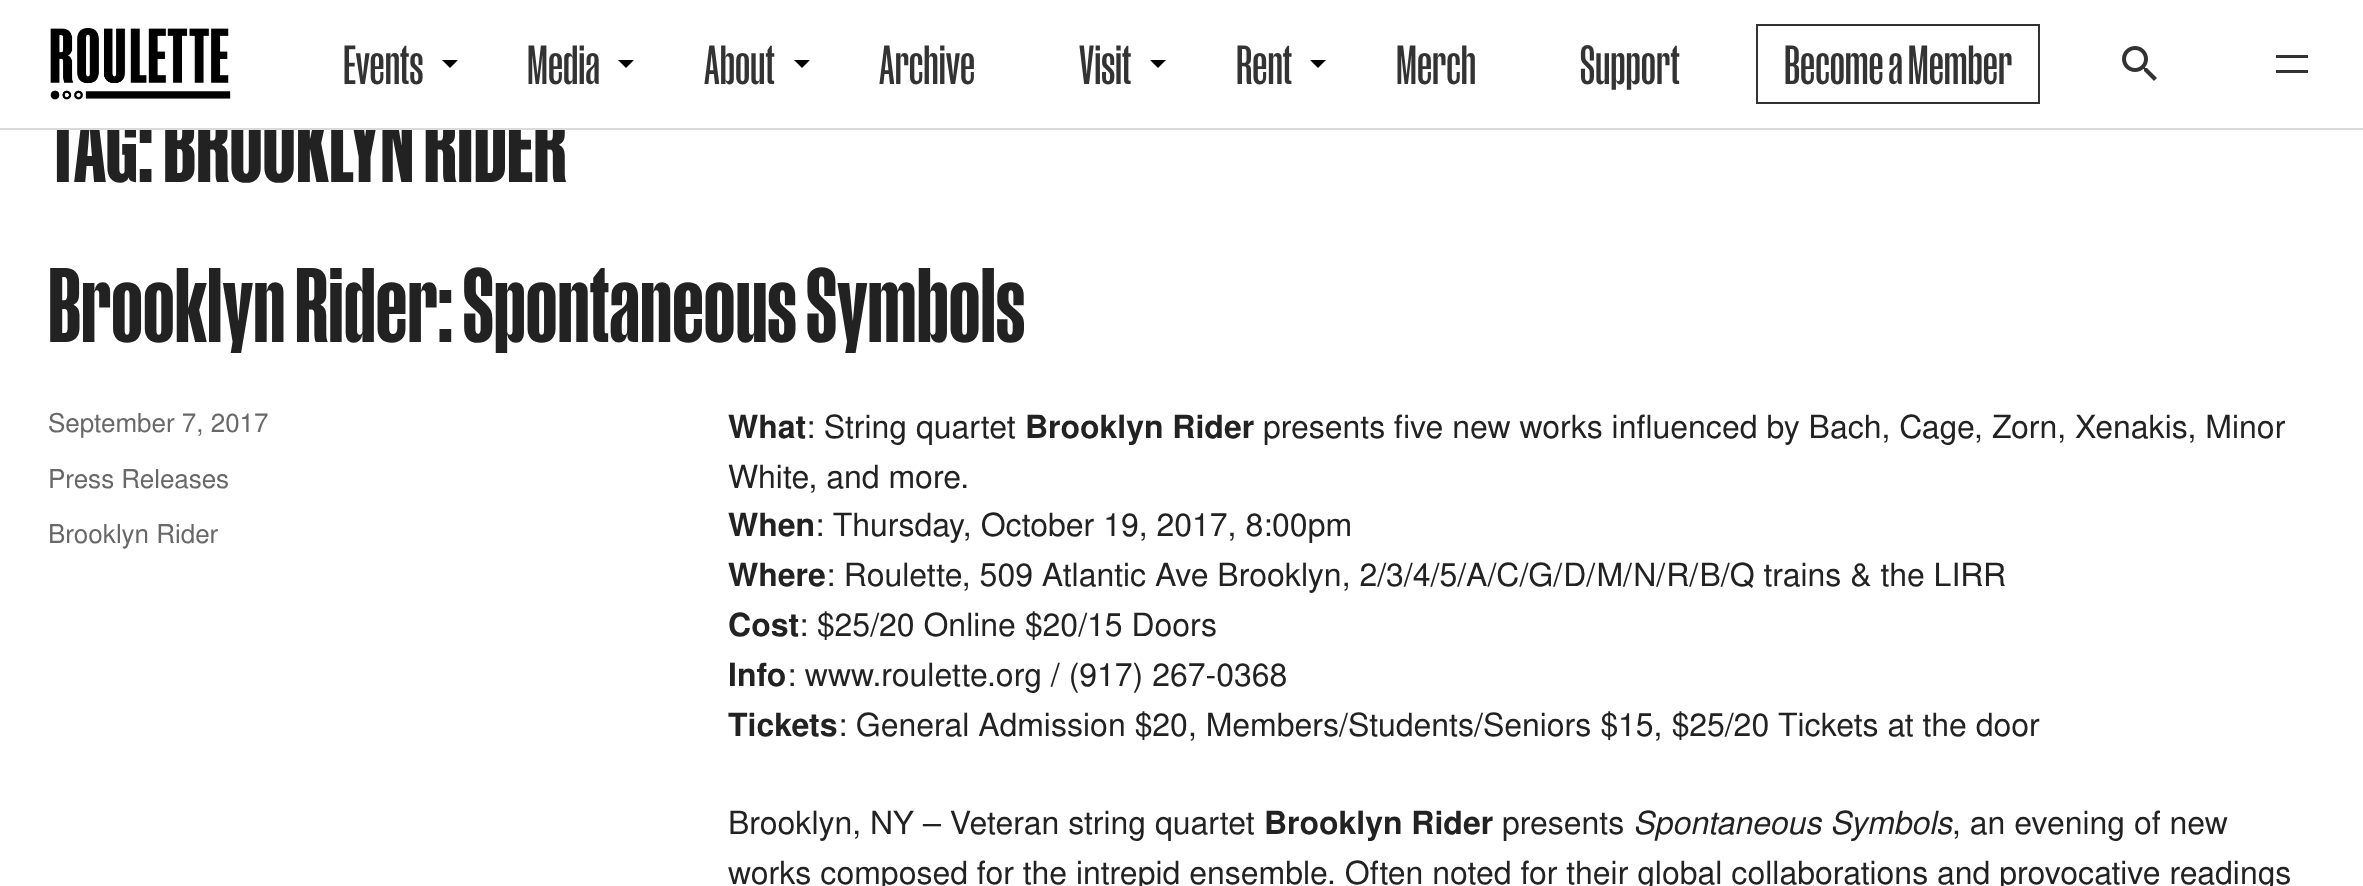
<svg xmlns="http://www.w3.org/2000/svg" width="2363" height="886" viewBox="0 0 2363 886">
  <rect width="100%" height="100%" fill="#ffffff"/>
  <text x="48" y="182" font-family="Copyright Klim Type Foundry" font-size="100" font-weight="bold" fill="#222222">TAG: BROOKLYN RIDER</text>
  <rect x="49" y="107" width="516" height="21" fill="#ffffff"/>
  <rect x="0" y="128" width="2363" height="2" fill="#dadada"/>
  <image x="50" y="28" width="181" height="72" href="img1.png"/>
  <text x="343" y="84" font-family="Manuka" font-size="52" font-weight="500" fill="#333333">Events</text>
  <path d="M442 60H458L450 68Z" fill="#000000"/>
  <text x="527" y="84" font-family="Manuka" font-size="52" font-weight="500" fill="#333333">Media</text>
  <path d="M618 60H634L626 68Z" fill="#000000"/>
  <text x="704" y="84" font-family="Manuka" font-size="52" font-weight="500" fill="#333333">About</text>
  <path d="M794 60H810L802 68Z" fill="#000000"/>
  <text x="879" y="84" font-family="Manuka" font-size="52" font-weight="500" fill="#333333">Archive</text>
  <text x="1079" y="84" font-family="Manuka" font-size="52" font-weight="500" fill="#333333">Visit</text>
  <path d="M1150 60H1166L1158 68Z" fill="#000000"/>
  <text x="1236" y="84" font-family="Manuka" font-size="52" font-weight="500" fill="#333333">Rent</text>
  <path d="M1310 60H1326L1318 68Z" fill="#000000"/>
  <text x="1396" y="84" font-family="Manuka" font-size="52" font-weight="500" fill="#333333">Merch</text>
  <text x="1580" y="84" font-family="Manuka" font-size="52" font-weight="500" fill="#333333">Support</text>
  <rect x="1757" y="25" width="282" height="78" fill="none" stroke="#333333" stroke-width="2"/>
  <text x="1784" y="84" font-family="Manuka" font-size="52" font-weight="500" fill="#333333">Become a Member</text>
  <image x="2122" y="46" width="35" height="35" href="img2.png"/>
  <rect x="2276" y="55" width="32" height="3" fill="#333333"/>
  <rect x="2276" y="70" width="32" height="3" fill="#333333"/>
  <text x="48" y="342" font-family="Copyright Klim Type Foundry" font-size="100" font-weight="bold" fill="#222222">Brooklyn Rider: Spontaneous Symbols</text>
  <text x="48" y="432" font-family="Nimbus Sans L" font-size="26" fill="#686868">September 7, 2017</text>
  <text x="48" y="488" font-family="Nimbus Sans L" font-size="26" fill="#686868">Press Releases</text>
  <text x="48" y="543" font-family="Nimbus Sans L" font-size="26" fill="#686868">Brooklyn Rider</text>
  <text x="728" y="438" font-family="Nimbus Sans L" font-size="32" font-weight="bold" fill="#222222">What</text>
  <text x="806" y="438" font-family="Nimbus Sans L" font-size="32" fill="#222222">: String quartet</text>
  <text x="1025" y="438" font-family="Nimbus Sans L" font-size="32" font-weight="bold" fill="#222222">Brooklyn Rider</text>
  <text x="1263" y="438" font-family="Nimbus Sans L" font-size="32" fill="#222222">presents five new works influenced by Bach, Cage, Zorn, Xenakis, Minor</text>
  <text x="728" y="488" font-family="Nimbus Sans L" font-size="32" fill="#222222">White, and more.</text>
  <text x="728" y="536" font-family="Nimbus Sans L" font-size="32" font-weight="bold" fill="#222222">When</text>
  <text x="815" y="536" font-family="Nimbus Sans L" font-size="32" fill="#222222">: Thursday, October 19, 2017, 8:00pm</text>
  <text x="728" y="586" font-family="Nimbus Sans L" font-size="32" font-weight="bold" fill="#222222">Where</text>
  <text x="826" y="586" font-family="Nimbus Sans L" font-size="32" fill="#222222">: Roulette, 509 Atlantic Ave Brooklyn, 2/3/4/5/A/C/G/D/M/N/R/B/Q trains &amp; the LIRR</text>
  <text x="728" y="636" font-family="Nimbus Sans L" font-size="32" font-weight="bold" fill="#222222">Cost</text>
  <text x="799" y="636" font-family="Nimbus Sans L" font-size="32" fill="#222222">: $25/20 Online $20/15 Doors</text>
  <text x="728" y="686" font-family="Nimbus Sans L" font-size="32" font-weight="bold" fill="#222222">Info</text>
  <text x="787" y="686" font-family="Nimbus Sans L" font-size="32" fill="#222222">: www.roulette.org / (917) 267-0368</text>
  <text x="728" y="736" font-family="Nimbus Sans L" font-size="32" font-weight="bold" fill="#222222">Tickets</text>
  <text x="838" y="736" font-family="Nimbus Sans L" font-size="32" fill="#222222">: General Admission $20, Members/Students/Seniors $15, $25/20 Tickets at the door</text>
  <text x="728" y="834" font-family="Nimbus Sans L" font-size="32" fill="#222222">Brooklyn, NY – Veteran string quartet</text>
  <text x="1264" y="834" font-family="Nimbus Sans L" font-size="32" font-weight="bold" fill="#222222">Brooklyn Rider</text>
  <text x="1502" y="834" font-family="Nimbus Sans L" font-size="32" fill="#222222">presents</text>
  <text x="1633" y="834" font-family="Nimbus Sans L" font-size="32" font-style="italic" fill="#222222">Spontaneous Symbols</text>
  <text x="1952" y="834" font-family="Nimbus Sans L" font-size="32" fill="#222222">, an evening of new</text>
  <text x="728" y="884" font-family="Nimbus Sans L" font-size="32" fill="#222222">works composed for the intrepid ensemble. Often noted for their global collaborations and provocative readings</text>
</svg>
